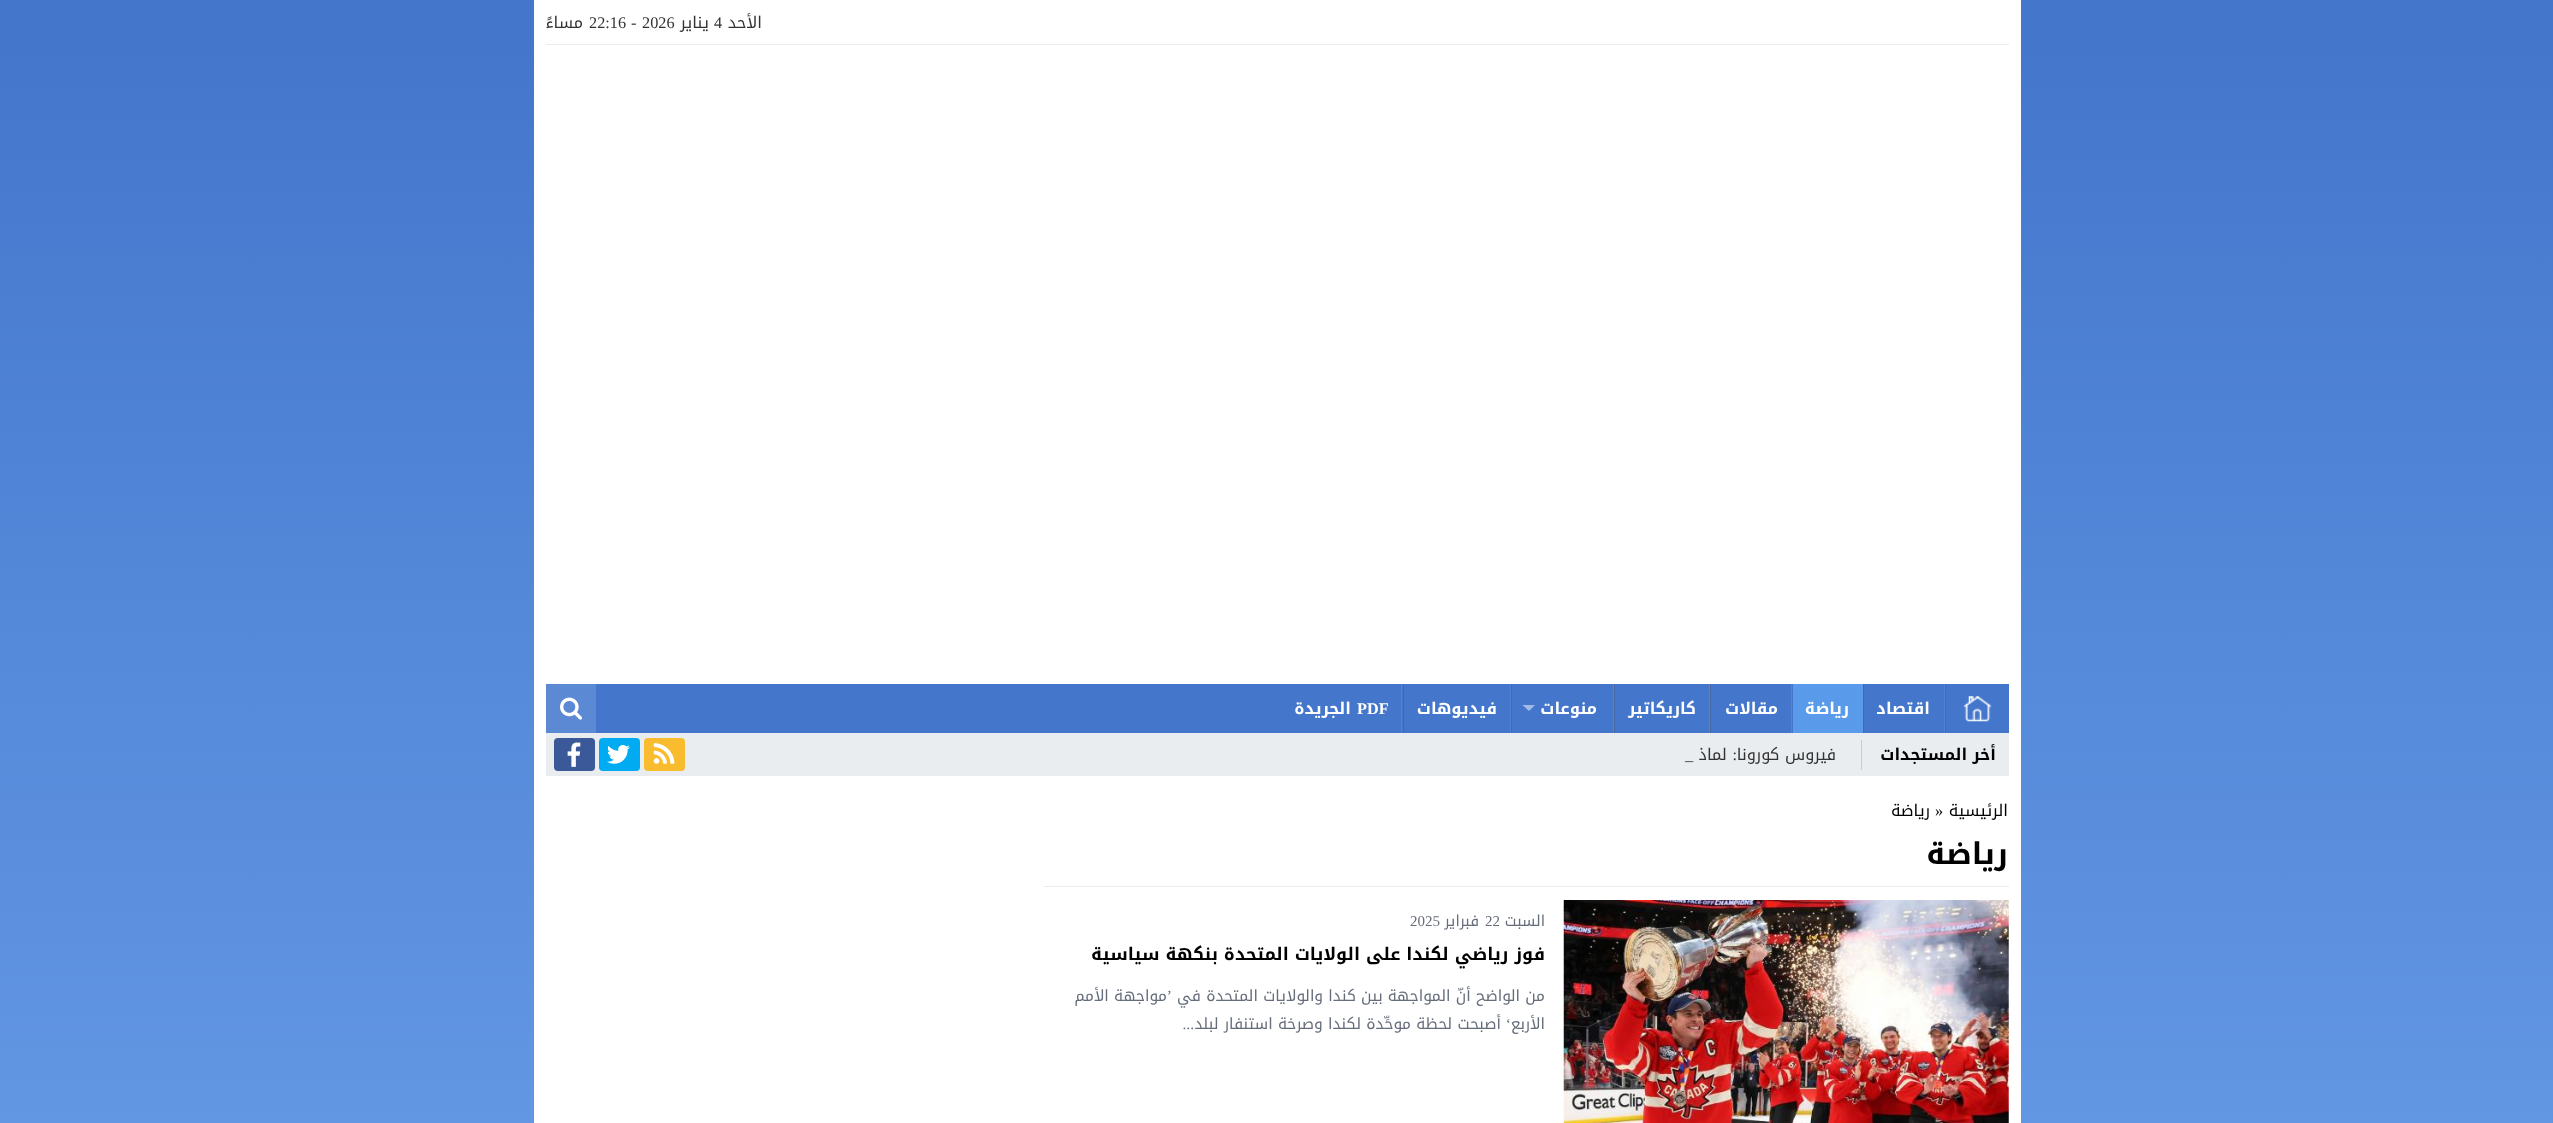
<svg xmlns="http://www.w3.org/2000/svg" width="2553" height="1123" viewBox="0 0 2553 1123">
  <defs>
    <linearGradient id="g1" gradientUnits="userSpaceOnUse" x1="1277" y1="0" x2="1277" y2="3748"><stop offset="0.01" stop-color="#4477cc"/><stop offset="0.54" stop-color="#7bb1f7"/><stop offset="1" stop-color="#4477cc"/></linearGradient>
  </defs>
  <rect width="100%" height="100%" fill="#ffffff"/>
  <rect x="0" y="0" width="2553" height="1123" fill="url(#g1)"/>
  <rect x="534" y="0" width="1487" height="1123" fill="#ffffff"/>
  <rect x="546" y="44" width="1463" height="1" fill="#e9edf0"/>
  <text x="762" y="28" font-family="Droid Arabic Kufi" font-size="16.25" direction="rtl" fill="#333333">الأحد</text>
  <text x="714" y="28" font-family="Liberation Serif" font-size="16.25" fill="#333333">4</text>
  <text x="709" y="28" font-family="Droid Arabic Kufi" font-size="16.25" direction="rtl" fill="#333333">يناير</text>
  <text x="642" y="28" font-family="Liberation Serif" font-size="16.25" fill="#333333">2026</text>
  <text x="631" y="28" font-family="Liberation Serif" font-size="16.25" fill="#333333">-</text>
  <text x="589" y="28" font-family="Liberation Serif" font-size="16.25" fill="#333333">22:16</text>
  <text x="583" y="28" font-family="Droid Arabic Kufi" font-size="16.25" direction="rtl" fill="#333333">مساءً</text>
  <rect x="596" y="684" width="1413" height="49" fill="#4477cc"/>
  <rect x="1945" y="684" width="1" height="49" fill="#4868a0"/>
  <image x="1963" y="696" width="29" height="26" href="img1.png"/>
  <rect x="1944" y="684" width="1" height="49" fill="#5283d9"/>
  <rect x="1863" y="684" width="1" height="49" fill="#4868a0"/>
  <text x="1930" y="714" font-family="Droid Arabic Kufi" font-size="16.25" font-weight="bold" direction="rtl" fill="#ffffff">اقتصاد</text>
  <rect x="1793" y="684" width="70" height="49" fill="#599aea"/>
  <text x="1849" y="714" font-family="Droid Arabic Kufi" font-size="16.25" font-weight="bold" direction="rtl" fill="#ffffff">رياضة</text>
  <rect x="1791" y="684" width="1" height="49" fill="#5283d9"/>
  <rect x="1710" y="684" width="1" height="49" fill="#4868a0"/>
  <text x="1778" y="714" font-family="Droid Arabic Kufi" font-size="16.25" font-weight="bold" direction="rtl" fill="#ffffff">مقالات</text>
  <rect x="1709" y="684" width="1" height="49" fill="#5283d9"/>
  <rect x="1614" y="684" width="1" height="49" fill="#4868a0"/>
  <text x="1696" y="714" font-family="Droid Arabic Kufi" font-size="16.25" font-weight="bold" direction="rtl" fill="#ffffff">كاريكاتير</text>
  <rect x="1613" y="684" width="1" height="49" fill="#5283d9"/>
  <rect x="1511" y="684" width="1" height="49" fill="#4868a0"/>
  <text x="1597" y="714" font-family="Droid Arabic Kufi" font-size="16.25" font-weight="bold" direction="rtl" fill="#ffffff">منوعات</text>
  <path d="M1522.5 705H1535L1529 711Z" fill="#a2bbe6"/>
  <rect x="1510" y="684" width="1" height="49" fill="#5283d9"/>
  <rect x="1403" y="684" width="1" height="49" fill="#4868a0"/>
  <text x="1497" y="714" font-family="Droid Arabic Kufi" font-size="16.25" font-weight="bold" direction="rtl" fill="#ffffff">فيديوهات</text>
  <rect x="1401" y="684" width="1" height="49" fill="#5283d9"/>
  <text x="1357" y="714" font-family="Liberation Serif" font-size="16.25" font-weight="bold" fill="#ffffff">PDF</text>
  <text x="1351" y="714" font-family="Droid Arabic Kufi" font-size="16.25" font-weight="bold" direction="rtl" fill="#ffffff">الجريدة</text>
  <rect x="546" y="684" width="50" height="49" fill="#5c89d3"/>
  <image x="560" y="697" width="22" height="23" href="img2.png"/>
  <rect x="546" y="733" width="1463" height="43" fill="#e9edf0"/>
  <text x="1996" y="760" font-family="Droid Arabic Kufi" font-size="16.25" font-weight="bold" direction="rtl" fill="#000000">أخر المستجدات</text>
  <rect x="1861" y="740" width="1" height="30" fill="#cccccc"/>
  <text x="1836" y="760" font-family="Droid Arabic Kufi" font-size="16.25" direction="rtl" fill="#333333">فيروس كورونا</text>
  <text x="1737" y="760" font-family="Liberation Serif" font-size="16.25" direction="rtl" fill="#333333">:</text>
  <text x="1727" y="760" font-family="Droid Arabic Kufi" font-size="16.25" direction="rtl" fill="#333333">لماذ</text>
  <text x="1693" y="760" font-family="Liberation Serif" font-size="16.25" direction="rtl" fill="#333333">_</text>
  <rect x="644" y="738" width="41" height="33" rx="4" fill="#f9bc2e"/>
  <image x="653" y="743" width="22" height="21" href="img3.png"/>
  <rect x="599" y="738" width="41" height="33" rx="4" fill="#00abf1"/>
  <image x="607" y="745" width="23" height="19" href="img4.png"/>
  <rect x="554" y="738" width="41" height="33" rx="4" fill="#3b5998"/>
  <image x="567" y="742" width="14" height="25" href="img5.png"/>
  <text x="2008" y="816" font-family="Droid Arabic Kufi" font-size="16.25" direction="rtl" fill="#000000">الرئيسية</text>
  <text x="1935" y="816" font-family="Liberation Serif" font-size="16.25" fill="#000000">»</text>
  <text x="1930" y="816" font-family="Droid Arabic Kufi" font-size="16.25" direction="rtl" fill="#000000">رياضة</text>
  <rect x="1044" y="886" width="965" height="1" fill="#e9edf0"/>
  <text x="2008" y="864" font-family="Droid Arabic Kufi" font-size="30" font-weight="bold" direction="rtl" fill="#000000">رياضة</text>
  <image x="1563" y="900" width="446" height="223" href="img6.png"/>
  <text x="1545" y="926" font-family="Droid Arabic Kufi" font-size="15" direction="rtl" fill="#656c7a">السبت</text>
  <text x="1485" y="926" font-family="Liberation Serif" font-size="15" fill="#656c7a">22</text>
  <text x="1479" y="926" font-family="Droid Arabic Kufi" font-size="15" direction="rtl" fill="#656c7a">فبراير</text>
  <text x="1410" y="926" font-family="Liberation Serif" font-size="15" fill="#656c7a">2025</text>
  <text x="1545" y="960" font-family="Droid Arabic Kufi" font-size="17.5" font-weight="bold" direction="rtl" fill="#000000">فوز رياضي لكندا على الولايات المتحدة بنكهة سياسية</text>
  <text x="1545" y="1001" font-family="Droid Arabic Kufi" font-size="15.5" direction="rtl" fill="#656c7a">من الواضح أنّ المواجهة بين كندا والولايات المتحدة في</text>
  <text x="1172" y="1001" font-family="Liberation Serif" font-size="15.5" direction="rtl" fill="#656c7a">’</text>
  <text x="1167" y="1001" font-family="Droid Arabic Kufi" font-size="15.5" direction="rtl" fill="#656c7a">مواجهة الأمم</text>
  <text x="1545" y="1029" font-family="Droid Arabic Kufi" font-size="15.5" direction="rtl" fill="#656c7a">الأربع</text>
  <text x="1511" y="1029" font-family="Liberation Serif" font-size="15.5" direction="rtl" fill="#656c7a">‘</text>
  <text x="1501" y="1029" font-family="Droid Arabic Kufi" font-size="15.5" direction="rtl" fill="#656c7a">أصبحت لحظة موحِّدة لكندا وصرخة استنفار لبلد</text>
  <text x="1194" y="1029" font-family="Liberation Serif" font-size="15.5" direction="rtl" fill="#656c7a">...</text>
</svg>
